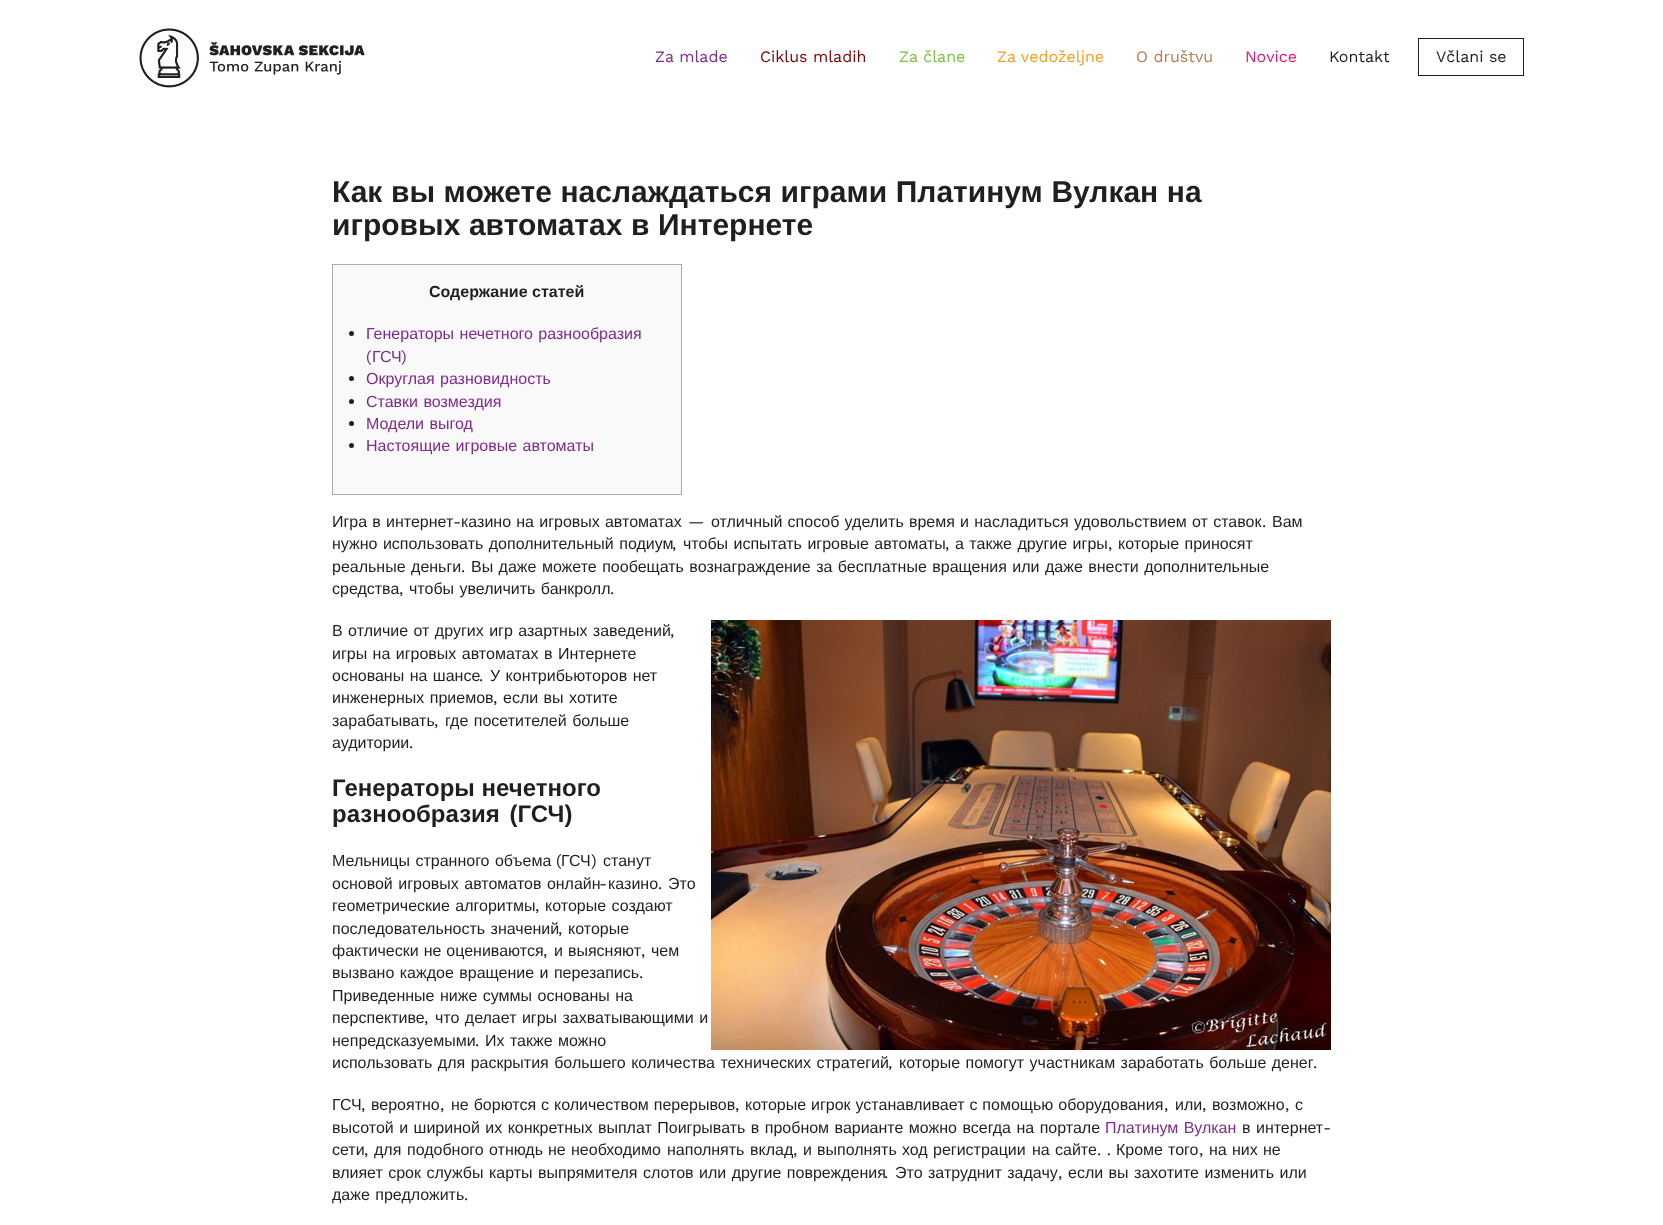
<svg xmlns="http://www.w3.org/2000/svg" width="1663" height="1225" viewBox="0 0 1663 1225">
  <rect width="100%" height="100%" fill="#ffffff"/>
  <image x="139" y="28" width="226" height="60" href="img1.png"/>
  <text x="655" y="62" font-family="Work Sans" font-size="16" fill="#802b8e">Za mlade</text>
  <text x="760" y="62" font-family="Work Sans" font-size="16" fill="#800000">Ciklus mladih</text>
  <text x="899" y="62" font-family="Work Sans" font-size="16" fill="#7dc142">Za člane</text>
  <text x="997" y="62" font-family="Work Sans" font-size="16" fill="#f89d23">Za vedoželjne</text>
  <text x="1136" y="62" font-family="Work Sans" font-size="16" fill="#b9784d">O društvu</text>
  <text x="1245" y="62" font-family="Work Sans" font-size="16" fill="#ea156e">Novice</text>
  <text x="1329" y="62" font-family="Work Sans" font-size="16" fill="#221e1f">Kontakt</text>
  <rect x="1418.5" y="38.5" width="105" height="37" fill="none" stroke="#221e1f"/>
  <text x="1436" y="62" font-family="Work Sans" font-size="16" fill="#221e1f">Včlani se</text>
  <text x="332" y="202" word-spacing="0.25" font-family="Liberation Sans" font-size="30" font-weight="bold" fill="#221e1f">Как вы можете наслаждаться играми Платинум Вулкан на</text>
  <text x="332" y="235" word-spacing="0.25" font-family="Liberation Sans" font-size="30" font-weight="bold" fill="#221e1f">игровых автоматах в Интернете</text>
  <rect x="332.5" y="264.5" width="349" height="230" fill="#f9f9f9" stroke="#aaaaaa"/>
  <text x="429" y="297" font-family="Liberation Sans" font-size="16" font-weight="bold" fill="#221e1f">Содержание статей</text>
  <circle cx="351.5" cy="333.5" r="2.5" fill="#221e1f"/>
  <text x="366" y="339" word-spacing="1" font-family="Liberation Sans" font-size="16" fill="#802b8e">Генераторы нечетного разнообразия</text>
  <text x="366" y="362" font-family="Work Sans" font-size="16" fill="#802b8e">(</text>
  <text x="372" y="362" font-family="Liberation Sans" font-size="16" fill="#802b8e">ГСЧ</text>
  <text x="401" y="362" font-family="Work Sans" font-size="16" fill="#802b8e">)</text>
  <circle cx="351.5" cy="378.5" r="2.5" fill="#221e1f"/>
  <text x="366" y="384" word-spacing="1" font-family="Liberation Sans" font-size="16" fill="#802b8e">Округлая разновидность</text>
  <circle cx="351.5" cy="401.5" r="2.5" fill="#221e1f"/>
  <text x="366" y="407" word-spacing="1" font-family="Liberation Sans" font-size="16" fill="#802b8e">Ставки возмездия</text>
  <circle cx="351.5" cy="423.5" r="2.5" fill="#221e1f"/>
  <text x="366" y="429" word-spacing="1" font-family="Liberation Sans" font-size="16" fill="#802b8e">Модели выгод</text>
  <circle cx="351.5" cy="445.5" r="2.5" fill="#221e1f"/>
  <text x="366" y="451" word-spacing="1" font-family="Liberation Sans" font-size="16" fill="#802b8e">Настоящие игровые автоматы</text>
  <text x="332" y="527" word-spacing="0.75" font-family="Liberation Sans" font-size="16" fill="#221e1f">Игра в интернет</text>
  <text x="453" y="527" font-family="Work Sans" font-size="16" fill="#221e1f">-</text>
  <text x="461" y="527" word-spacing="0.75" font-family="Liberation Sans" font-size="16" fill="#221e1f">казино на игровых автоматах</text>
  <text x="688" y="527" font-family="Work Sans" font-size="16" fill="#221e1f">—</text>
  <text x="711" y="527" word-spacing="0.75" font-family="Liberation Sans" font-size="16" fill="#221e1f">отличный способ уделить время и насладиться удовольствием от ставок</text>
  <text x="1272" y="527" font-family="Liberation Sans" font-size="16" fill="#221e1f">Вам</text>
  <text x="1262" y="527" font-family="Work Sans" font-size="16" fill="#221e1f">.</text>
  <text x="332" y="549" word-spacing="1" font-family="Liberation Sans" font-size="16" fill="#221e1f">нужно использовать дополнительный подиум</text>
  <text x="672" y="549" font-family="Work Sans" font-size="16" fill="#221e1f">,</text>
  <text x="683" y="549" word-spacing="1" font-family="Liberation Sans" font-size="16" fill="#221e1f">чтобы испытать игровые автоматы</text>
  <text x="945" y="549" font-family="Work Sans" font-size="16" fill="#221e1f">,</text>
  <text x="955" y="549" word-spacing="1" font-family="Liberation Sans" font-size="16" fill="#221e1f">а также другие игры</text>
  <text x="1108" y="549" font-family="Work Sans" font-size="16" fill="#221e1f">,</text>
  <text x="1118" y="549" word-spacing="1" font-family="Liberation Sans" font-size="16" fill="#221e1f">которые приносят</text>
  <text x="332" y="572" word-spacing="1" font-family="Liberation Sans" font-size="16" fill="#221e1f">реальные деньги</text>
  <text x="461" y="572" font-family="Work Sans" font-size="16" fill="#221e1f">.</text>
  <text x="471" y="572" word-spacing="1" font-family="Liberation Sans" font-size="16" fill="#221e1f">Вы даже можете пообещать вознаграждение за бесплатные вращения или даже внести дополнительные</text>
  <text x="332" y="594" font-family="Liberation Sans" font-size="16" fill="#221e1f">средства</text>
  <text x="399" y="594" font-family="Work Sans" font-size="16" fill="#221e1f">,</text>
  <text x="409" y="594" word-spacing="1" font-family="Liberation Sans" font-size="16" fill="#221e1f">чтобы увеличить банкролл</text>
  <text x="610" y="594" font-family="Work Sans" font-size="16" fill="#221e1f">.</text>
  <text x="332" y="636" word-spacing="1" font-family="Liberation Sans" font-size="16" fill="#221e1f">В отличие от других игр азартных заведений</text>
  <text x="670" y="636" font-family="Work Sans" font-size="16" fill="#221e1f">,</text>
  <text x="332" y="659" word-spacing="1" font-family="Liberation Sans" font-size="16" fill="#221e1f">игры на игровых автоматах в Интернете</text>
  <text x="332" y="681" word-spacing="1" font-family="Liberation Sans" font-size="16" fill="#221e1f">основаны на шансе</text>
  <text x="479" y="681" font-family="Work Sans" font-size="16" fill="#221e1f">.</text>
  <text x="490" y="681" word-spacing="1" font-family="Liberation Sans" font-size="16" fill="#221e1f">У контрибьюторов нет</text>
  <text x="332" y="703" word-spacing="1" font-family="Liberation Sans" font-size="16" fill="#221e1f">инженерных приемов</text>
  <text x="493" y="703" font-family="Work Sans" font-size="16" fill="#221e1f">,</text>
  <text x="503" y="703" word-spacing="1" font-family="Liberation Sans" font-size="16" fill="#221e1f">если вы хотите</text>
  <text x="332" y="726" font-family="Liberation Sans" font-size="16" fill="#221e1f">зарабатывать</text>
  <text x="434" y="726" font-family="Work Sans" font-size="16" fill="#221e1f">,</text>
  <text x="445" y="726" word-spacing="1" font-family="Liberation Sans" font-size="16" fill="#221e1f">где посетителей больше</text>
  <text x="332" y="748" font-family="Liberation Sans" font-size="16" fill="#221e1f">аудитории</text>
  <text x="409" y="748" font-family="Work Sans" font-size="16" fill="#221e1f">.</text>
  <image x="711" y="620" width="620" height="430" href="img2.png"/>
  <text x="332" y="796" font-family="Liberation Sans" font-size="24" font-weight="bold" fill="#221e1f">Генераторы нечетного</text>
  <text x="332" y="822" word-spacing="3" font-family="Liberation Sans" font-size="24" font-weight="bold" fill="#221e1f">разнообразия (ГСЧ)</text>
  <text x="332" y="866" word-spacing="1" font-family="Liberation Sans" font-size="16" fill="#221e1f">Мельницы странного объема</text>
  <text x="556" y="866" font-family="Work Sans" font-size="16" fill="#221e1f">(</text>
  <text x="561" y="866" font-family="Liberation Sans" font-size="16" fill="#221e1f">ГСЧ</text>
  <text x="591" y="866" font-family="Work Sans" font-size="16" fill="#221e1f">)</text>
  <text x="603" y="866" font-family="Liberation Sans" font-size="16" fill="#221e1f">станут</text>
  <text x="332" y="889" word-spacing="1" font-family="Liberation Sans" font-size="16" fill="#221e1f">основой игровых автоматов онлайн</text>
  <text x="599" y="889" font-family="Work Sans" font-size="16" fill="#221e1f">-</text>
  <text x="608" y="889" font-family="Liberation Sans" font-size="16" fill="#221e1f">казино</text>
  <text x="668" y="889" font-family="Liberation Sans" font-size="16" fill="#221e1f">Это</text>
  <text x="658" y="889" font-family="Work Sans" font-size="16" fill="#221e1f">.</text>
  <text x="332" y="911" word-spacing="1" font-family="Liberation Sans" font-size="16" fill="#221e1f">геометрические алгоритмы</text>
  <text x="535" y="911" font-family="Work Sans" font-size="16" fill="#221e1f">,</text>
  <text x="545" y="911" word-spacing="1" font-family="Liberation Sans" font-size="16" fill="#221e1f">которые создают</text>
  <text x="332" y="934" word-spacing="1" font-family="Liberation Sans" font-size="16" fill="#221e1f">последовательность значений</text>
  <text x="558" y="934" font-family="Work Sans" font-size="16" fill="#221e1f">,</text>
  <text x="568" y="934" font-family="Liberation Sans" font-size="16" fill="#221e1f">которые</text>
  <text x="332" y="956" word-spacing="0.5" font-family="Liberation Sans" font-size="16" fill="#221e1f">фактически не оцениваются</text>
  <text x="543" y="956" font-family="Work Sans" font-size="16" fill="#221e1f">,</text>
  <text x="554" y="956" word-spacing="0.5" font-family="Liberation Sans" font-size="16" fill="#221e1f">и выясняют</text>
  <text x="641" y="956" font-family="Work Sans" font-size="16" fill="#221e1f">,</text>
  <text x="651" y="956" font-family="Liberation Sans" font-size="16" fill="#221e1f">чем</text>
  <text x="332" y="978" word-spacing="1" font-family="Liberation Sans" font-size="16" fill="#221e1f">вызвано каждое вращение и перезапись</text>
  <text x="639" y="978" font-family="Work Sans" font-size="16" fill="#221e1f">.</text>
  <text x="332" y="1001" word-spacing="1" font-family="Liberation Sans" font-size="16" fill="#221e1f">Приведенные ниже суммы основаны на</text>
  <text x="332" y="1023" font-family="Liberation Sans" font-size="16" fill="#221e1f">перспективе</text>
  <text x="424" y="1023" font-family="Work Sans" font-size="16" fill="#221e1f">,</text>
  <text x="435" y="1023" word-spacing="1" font-family="Liberation Sans" font-size="16" fill="#221e1f">что делает игры захватывающими и</text>
  <text x="332" y="1046" font-family="Liberation Sans" font-size="16" fill="#221e1f">непредсказуемыми</text>
  <text x="475" y="1046" font-family="Work Sans" font-size="16" fill="#221e1f">.</text>
  <text x="485" y="1046" word-spacing="1" font-family="Liberation Sans" font-size="16" fill="#221e1f">Их также можно</text>
  <text x="332" y="1068" word-spacing="1" font-family="Liberation Sans" font-size="16" fill="#221e1f">использовать для раскрытия большего количества технических стратегий</text>
  <text x="888" y="1068" font-family="Work Sans" font-size="16" fill="#221e1f">,</text>
  <text x="899" y="1068" word-spacing="1" font-family="Liberation Sans" font-size="16" fill="#221e1f">которые помогут участникам заработать больше денег</text>
  <text x="1313" y="1068" font-family="Work Sans" font-size="16" fill="#221e1f">.</text>
  <text x="332" y="1110" font-family="Liberation Sans" font-size="16" fill="#221e1f">ГСЧ</text>
  <text x="361" y="1110" font-family="Work Sans" font-size="16" fill="#221e1f">,</text>
  <text x="371" y="1110" font-family="Liberation Sans" font-size="16" fill="#221e1f">вероятно</text>
  <text x="440" y="1110" font-family="Work Sans" font-size="16" fill="#221e1f">,</text>
  <text x="451" y="1110" word-spacing="0.5" font-family="Liberation Sans" font-size="16" fill="#221e1f">не борются с количеством перерывов</text>
  <text x="735" y="1110" font-family="Work Sans" font-size="16" fill="#221e1f">,</text>
  <text x="745" y="1110" word-spacing="0.5" font-family="Liberation Sans" font-size="16" fill="#221e1f">которые игрок устанавливает с помощью оборудования</text>
  <text x="1164" y="1110" font-family="Work Sans" font-size="16" fill="#221e1f">,</text>
  <text x="1175" y="1110" font-family="Liberation Sans" font-size="16" fill="#221e1f">или</text>
  <text x="1202" y="1110" font-family="Work Sans" font-size="16" fill="#221e1f">,</text>
  <text x="1212" y="1110" font-family="Liberation Sans" font-size="16" fill="#221e1f">возможно</text>
  <text x="1285" y="1110" font-family="Work Sans" font-size="16" fill="#221e1f">,</text>
  <text x="1295" y="1110" font-family="Liberation Sans" font-size="16" fill="#221e1f">с</text>
  <text x="332" y="1133" word-spacing="1" font-family="Liberation Sans" font-size="16" fill="#221e1f">высотой и шириной их конкретных выплат Поигрывать в пробном варианте можно всегда на портале</text>
  <text x="1105" y="1133" word-spacing="1" font-family="Liberation Sans" font-size="16" fill="#802b8e">Платинум Вулкан</text>
  <text x="1242" y="1133" word-spacing="1" font-family="Liberation Sans" font-size="16" fill="#221e1f">в интернет</text>
  <text x="1323" y="1133" font-family="Work Sans" font-size="16" fill="#221e1f">-</text>
  <text x="332" y="1155" font-family="Liberation Sans" font-size="16" fill="#221e1f">сети</text>
  <text x="364" y="1155" font-family="Work Sans" font-size="16" fill="#221e1f">,</text>
  <text x="374" y="1155" font-family="Liberation Sans" font-size="16" fill="#221e1f">для</text>
  <text x="407" y="1155" font-family="Liberation Sans" font-size="16" fill="#221e1f">подобного</text>
  <text x="489" y="1155" font-family="Liberation Sans" font-size="16" fill="#221e1f">отнюдь</text>
  <text x="548" y="1155" font-family="Liberation Sans" font-size="16" fill="#221e1f">не</text>
  <text x="571" y="1155" font-family="Liberation Sans" font-size="16" fill="#221e1f">необходимо</text>
  <text x="667" y="1155" font-family="Liberation Sans" font-size="16" fill="#221e1f">наполнять</text>
  <text x="750" y="1155" font-family="Liberation Sans" font-size="16" fill="#221e1f">вклад</text>
  <text x="793" y="1155" font-family="Work Sans" font-size="16" fill="#221e1f">,</text>
  <text x="803" y="1155" font-family="Liberation Sans" font-size="16" fill="#221e1f">и</text>
  <text x="817" y="1155" font-family="Liberation Sans" font-size="16" fill="#221e1f">выполнять</text>
  <text x="902" y="1155" font-family="Liberation Sans" font-size="16" fill="#221e1f">ход</text>
  <text x="933" y="1155" font-family="Liberation Sans" font-size="16" fill="#221e1f">регистрации</text>
  <text x="1032" y="1155" font-family="Liberation Sans" font-size="16" fill="#221e1f">на</text>
  <text x="1055" y="1155" font-family="Liberation Sans" font-size="16" fill="#221e1f">сайте</text>
  <text x="1097" y="1155" font-family="Work Sans" font-size="16" fill="#221e1f">. .</text>
  <text x="1116" y="1155" font-family="Liberation Sans" font-size="16" fill="#221e1f">Кроме</text>
  <text x="1168" y="1155" font-family="Liberation Sans" font-size="16" fill="#221e1f">того</text>
  <text x="1199" y="1155" font-family="Work Sans" font-size="16" fill="#221e1f">,</text>
  <text x="1209" y="1155" font-family="Liberation Sans" font-size="16" fill="#221e1f">на</text>
  <text x="1232" y="1155" font-family="Liberation Sans" font-size="16" fill="#221e1f">них</text>
  <text x="1263" y="1155" font-family="Liberation Sans" font-size="16" fill="#221e1f">не</text>
  <text x="332" y="1178" word-spacing="1" font-family="Liberation Sans" font-size="16" fill="#221e1f">влияет срок службы карты выпрямителя слотов или другие повреждения</text>
  <text x="884" y="1178" font-family="Work Sans" font-size="16" fill="#221e1f">.</text>
  <text x="895" y="1178" word-spacing="1" font-family="Liberation Sans" font-size="16" fill="#221e1f">Это затруднит задачу</text>
  <text x="1058" y="1178" font-family="Work Sans" font-size="16" fill="#221e1f">,</text>
  <text x="1068" y="1178" word-spacing="1" font-family="Liberation Sans" font-size="16" fill="#221e1f">если вы захотите изменить или</text>
  <text x="332" y="1200" word-spacing="1" font-family="Liberation Sans" font-size="16" fill="#221e1f">даже предложить</text>
  <text x="464" y="1200" font-family="Work Sans" font-size="16" fill="#221e1f">.</text>
</svg>
